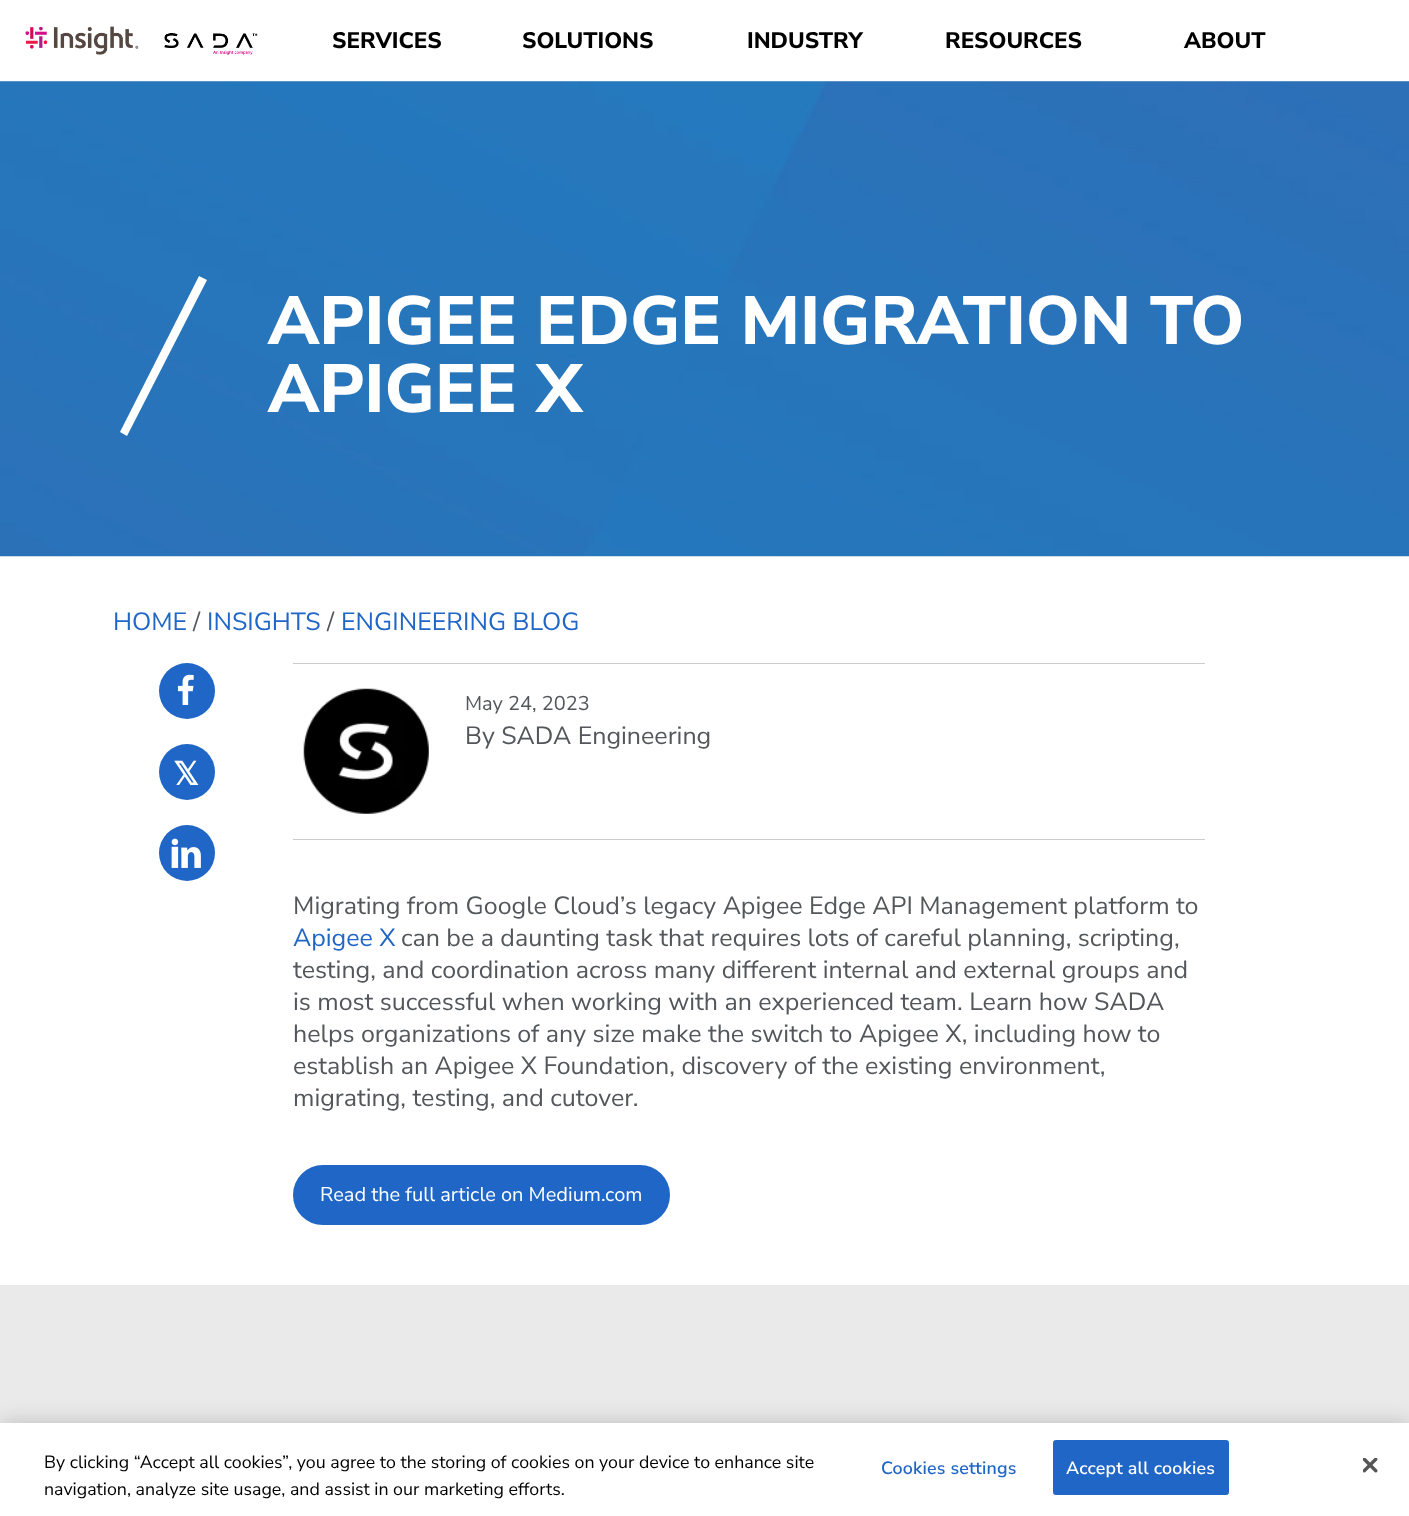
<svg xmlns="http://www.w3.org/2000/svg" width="1409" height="1516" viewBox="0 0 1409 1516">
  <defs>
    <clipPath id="clip1"><rect x="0" y="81" width="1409" height="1"/></clipPath>
    <filter id="blur1" x="-50%" y="-200%" width="200%" height="500%"><feGaussianBlur stdDeviation="1"/></filter>
    <filter id="blur2" x="-50%" y="-200%" width="200%" height="500%"><feGaussianBlur stdDeviation="11"/></filter>
  </defs>
  <rect width="100%" height="100%" fill="#ffffff"/>
  <g clip-path="url(#clip1)">
    <rect x="-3" y="-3" width="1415" height="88" fill="#eaeaea" filter="url(#blur1)"/>
  </g>
  <image x="25" y="26" width="233" height="29" href="img1.png"/>
  <text x="332" y="48" font-family="Nunito Sans" font-size="22.5" font-weight="800" fill="#000000">SERVICES</text>
  <text x="522" y="48" font-family="Nunito Sans" font-size="22.5" font-weight="800" fill="#000000">SOLUTIONS</text>
  <text x="747" y="48" font-family="Nunito Sans" font-size="22.5" font-weight="800" fill="#000000">INDUSTRY</text>
  <text x="945" y="48" font-family="Nunito Sans" font-size="22.5" font-weight="800" fill="#000000">RESOURCES</text>
  <text x="1184" y="48" font-family="Nunito Sans" font-size="22.5" font-weight="800" fill="#000000">ABOUT</text>
  <image x="0" y="81" width="1409" height="476" href="img2.png"/>
  <path d="M199 276L207 280L127 436L120 432Z" fill="#ffffff"/>
  <text x="268" y="344" font-family="Nunito Sans" font-size="68" font-weight="800" fill="#ffffff">APIGEE EDGE MIGRATION TO</text>
  <text x="268" y="412" font-family="Nunito Sans" font-size="68" font-weight="800" fill="#ffffff">APIGEE X</text>
  <text x="113" y="630" font-family="Nunito Sans" font-size="25" fill="#2066c7">HOME</text>
  <text x="193" y="630" font-family="Nunito Sans" font-size="25" fill="#53565a">/</text>
  <text x="207" y="630" font-family="Nunito Sans" font-size="25" fill="#2066c7">INSIGHTS</text>
  <text x="327" y="630" font-family="Nunito Sans" font-size="25" fill="#53565a">/</text>
  <text x="341" y="630" font-family="Nunito Sans" font-size="25" fill="#2066c7">ENGINEERING BLOG</text>
  <circle cx="187" cy="691" r="28" fill="#2066c7"/>
  <image x="177" y="674" width="17" height="31" href="img3.png"/>
  <circle cx="187" cy="772" r="28" fill="#2066c7"/>
  <text x="173" y="785" font-family="DejaVu Sans" font-size="32" font-weight="bold" fill="#ffffff">𝕏</text>
  <circle cx="187" cy="853" r="28" fill="#2066c7"/>
  <image x="171" y="838" width="30" height="30" href="img4.png"/>
  <rect x="293" y="663" width="912" height="1" fill="#cccccc"/>
  <image x="303" y="688" width="126" height="126" href="img5.png"/>
  <text x="465" y="710" font-family="Nunito Sans" font-size="20" fill="#53565a">May 24, 2023</text>
  <text x="465" y="744" font-family="Nunito Sans" font-size="25" fill="#53565a">By SADA Engineering</text>
  <rect x="293" y="839" width="912" height="1" fill="#cccccc"/>
  <text x="293" y="914" font-family="Nunito Sans" font-size="25" fill="#53565a">Migrating from Google Cloud’s legacy Apigee Edge API Management platform to</text>
  <text x="293" y="946" font-family="Nunito Sans" font-size="25" fill="#2066c7">Apigee X</text>
  <text x="401" y="946" font-family="Nunito Sans" font-size="25" fill="#53565a">can be a daunting task that requires lots of careful planning, scripting,</text>
  <text x="293" y="978" font-family="Nunito Sans" font-size="25" fill="#53565a">testing, and coordination across many different internal and external groups and</text>
  <text x="293" y="1010" font-family="Nunito Sans" font-size="25" fill="#53565a">is most successful when working with an experienced team. Learn how SADA</text>
  <text x="293" y="1042" font-family="Nunito Sans" font-size="25" fill="#53565a">helps organizations of any size make the switch to Apigee X, including how to</text>
  <text x="293" y="1074" font-family="Nunito Sans" font-size="25" fill="#53565a">establish an Apigee X Foundation, discovery of the existing environment,</text>
  <text x="293" y="1106" font-family="Nunito Sans" font-size="25" fill="#53565a">migrating, testing, and cutover.</text>
  <rect x="294.5" y="1166.5" width="374" height="57" rx="28.5" fill="#2066c7" stroke="#2066c7" stroke-width="3"/>
  <text x="320" y="1201" font-family="Nunito Sans" font-size="20" fill="#ffffff">Read the full article on Medium.com</text>
  <rect x="0" y="1285" width="1409" height="138" fill="#eaeaea"/>
  <rect x="0" y="1423" width="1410" height="93" fill="#000000" fill-opacity="0.2" filter="url(#blur2)"/>
  <rect x="0" y="1423" width="1409" height="93" fill="#ffffff"/>
  <text x="44" y="1468" font-family="Nunito Sans" font-size="17.8" fill="#000000">By clicking “Accept all cookies”, you agree to the storing of cookies on your device to enhance site</text>
  <text x="44" y="1495" font-family="Nunito Sans" font-size="17.8" fill="#000000">navigation, analyze site usage, and assist in our marketing efforts.</text>
  <text x="881" y="1474" font-family="Nunito Sans" font-size="17.8" font-weight="600" letter-spacing="0.2" fill="#2066c7">Cookies settings</text>
  <rect x="1053.5" y="1440.5" width="175" height="54" rx="2" fill="#2066c7" stroke="#2066c7"/>
  <text x="1066" y="1474" font-family="Nunito Sans" font-size="17.8" font-weight="600" letter-spacing="0.2" fill="#ffffff">Accept all cookies</text>
  <image x="1363" y="1458" width="15" height="15" href="img6.png"/>
</svg>
